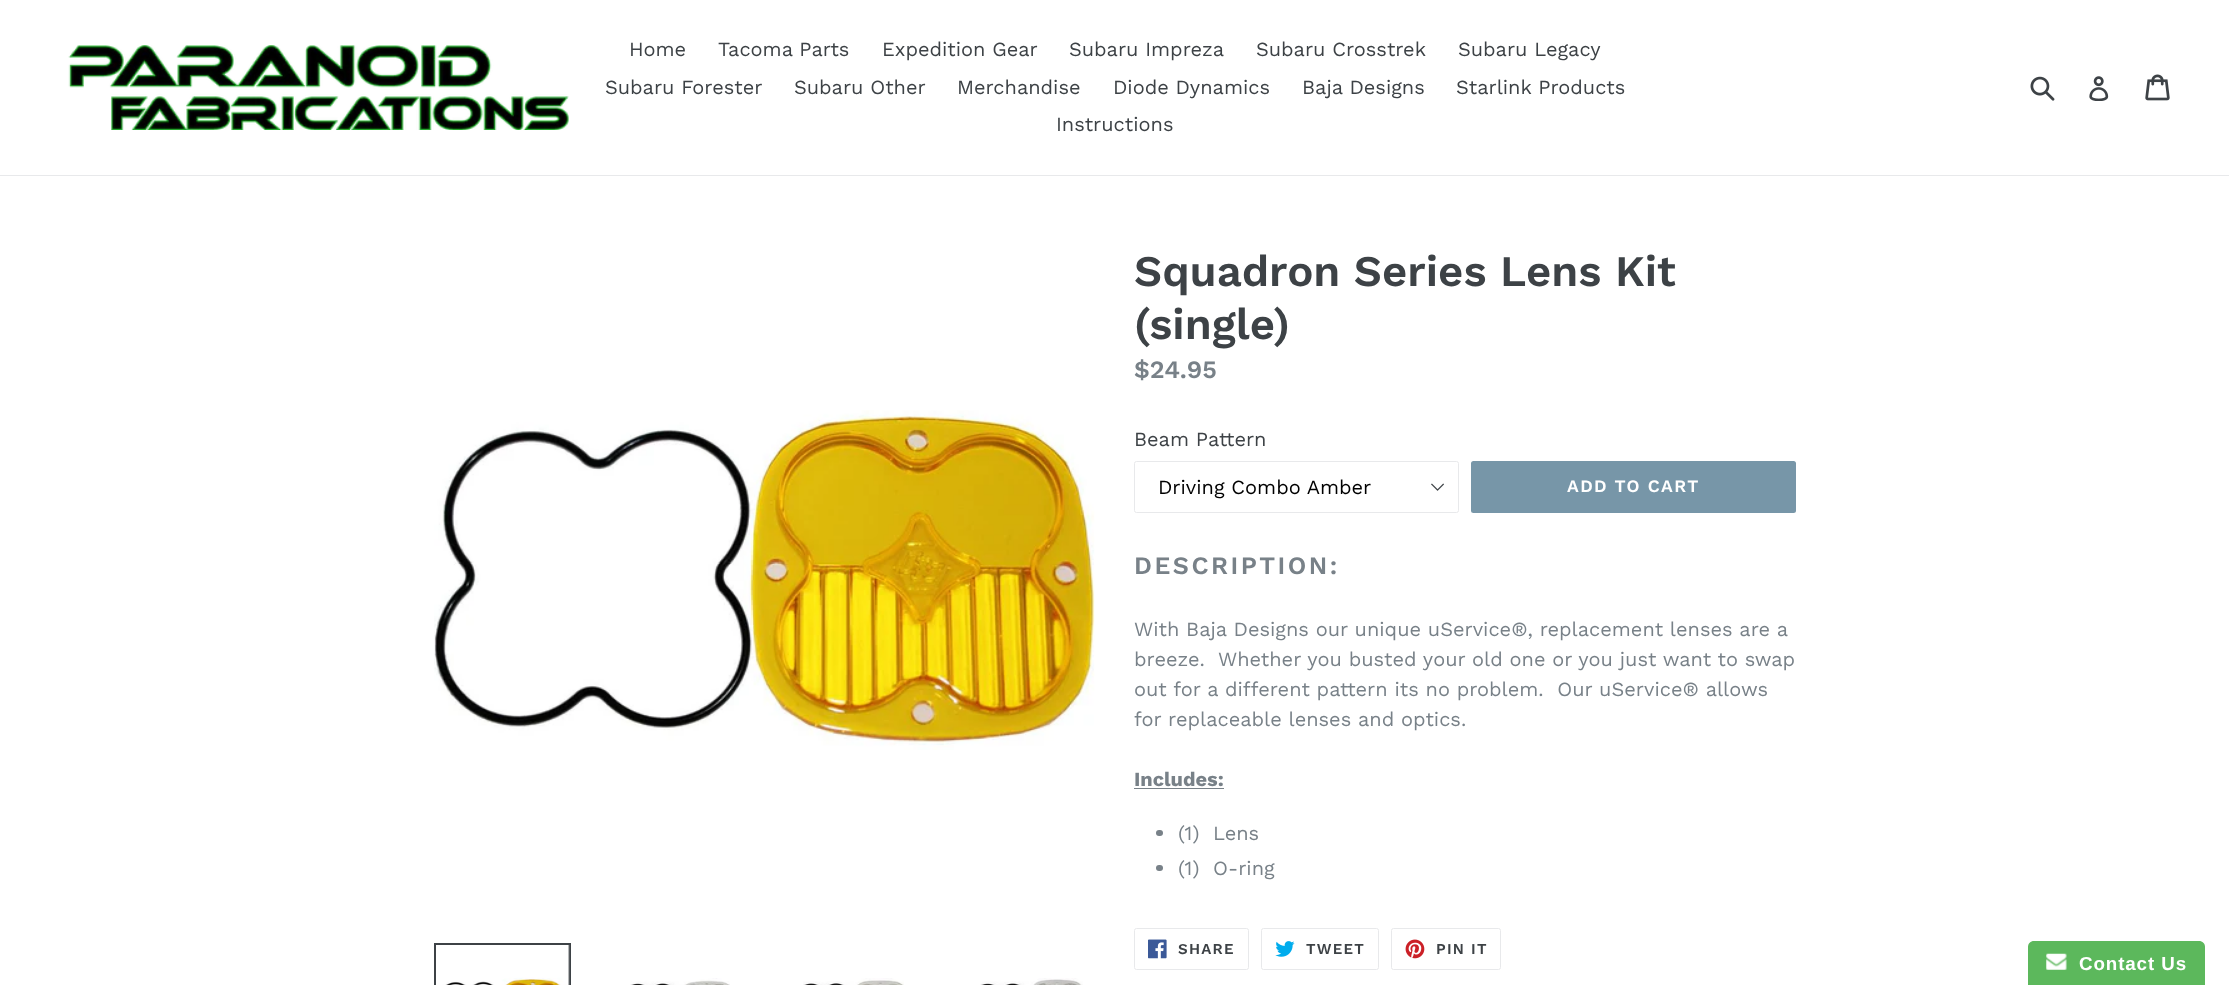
<svg xmlns="http://www.w3.org/2000/svg" width="2229" height="985" viewBox="0 0 2229 985">
  <rect width="100%" height="100%" fill="#ffffff"/>
  <rect x="0" y="175" width="2229" height="1" fill="#e8e9eb"/>
  <image x="68" y="45" width="501" height="85" href="img1.png"/>
  <text x="629" y="56" font-family="Work Sans" font-size="20" fill="#3d4246">Home</text>
  <text x="718" y="56" font-family="Work Sans" font-size="20" fill="#3d4246">Tacoma Parts</text>
  <text x="882" y="56" font-family="Work Sans" font-size="20" fill="#3d4246">Expedition Gear</text>
  <text x="1069" y="56" font-family="Work Sans" font-size="20" fill="#3d4246">Subaru Impreza</text>
  <text x="1256" y="56" font-family="Work Sans" font-size="20" fill="#3d4246">Subaru Crosstrek</text>
  <text x="1458" y="56" font-family="Work Sans" font-size="20" fill="#3d4246">Subaru Legacy</text>
  <text x="605" y="94" font-family="Work Sans" font-size="20" fill="#3d4246">Subaru Forester</text>
  <text x="794" y="94" font-family="Work Sans" font-size="20" fill="#3d4246">Subaru Other</text>
  <text x="957" y="94" font-family="Work Sans" font-size="20" fill="#3d4246">Merchandise</text>
  <text x="1113" y="94" font-family="Work Sans" font-size="20" fill="#3d4246">Diode Dynamics</text>
  <text x="1302" y="94" font-family="Work Sans" font-size="20" fill="#3d4246">Baja Designs</text>
  <text x="1456" y="94" font-family="Work Sans" font-size="20" fill="#3d4246">Starlink Products</text>
  <text x="1056" y="131" font-family="Work Sans" font-size="20" fill="#3d4246">Instructions</text>
  <image x="2030" y="76" width="25" height="25" href="img2.png"/>
  <image x="2089" y="76" width="20" height="25" href="img3.png"/>
  <image x="2145" y="74" width="25" height="27" href="img4.png"/>
  <image x="434" y="410" width="661" height="340" href="img5.png"/>
  <rect x="435.5" y="944.5" width="134" height="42" fill="none" stroke="#3d4246" stroke-width="3"/>
  <image x="436" y="945" width="134" height="40" href="img6.png"/>
  <image x="630" y="978" width="100" height="7" href="img7.png"/>
  <image x="803" y="978" width="101" height="7" href="img8.png"/>
  <image x="980" y="978" width="103" height="7" href="img9.png"/>
  <text x="1134" y="286" font-family="Work Sans" font-size="43.75" font-weight="600" fill="#3d4246">Squadron Series Lens Kit</text>
  <text x="1134" y="339" font-family="Work Sans" font-size="43.75" font-weight="600" fill="#3d4246">(single)</text>
  <text x="1134" y="378" font-family="Work Sans" font-size="25" font-weight="600" fill="#788188">$24.95</text>
  <text x="1134" y="446" font-family="Work Sans" font-size="20" fill="#3d4246">Beam Pattern</text>
  <image x="1431" y="483" width="13" height="8" href="img10.png"/>
  <rect x="1134.5" y="461.5" width="324" height="51" rx="2" fill="none" stroke="#e8e9eb"/>
  <text x="1158" y="494" font-family="Work Sans" font-size="20" fill="#000000">Driving Combo Amber</text>
  <rect x="1471" y="461" width="325" height="52" rx="2.5" fill="#7796a8"/>
  <text x="1567" y="492" font-family="Work Sans" font-size="17.5" font-weight="600" letter-spacing="1.4" fill="#ffffff">ADD TO CART</text>
  <text x="1134" y="574" font-family="Work Sans" font-size="25" font-weight="600" letter-spacing="2.5" fill="#788188">DESCRIPTION:</text>
  <text x="1134" y="636" font-family="Work Sans" font-size="20" fill="#788188">With Baja Designs our unique uService®, replacement lenses are a</text>
  <text x="1134" y="666" font-family="Work Sans" font-size="20" fill="#788188" xml:space="preserve">breeze.  Whether you busted your old one or you just want to swap</text>
  <text x="1134" y="696" font-family="Work Sans" font-size="20" fill="#788188" xml:space="preserve">out for a different pattern its no problem.  Our uService® allows</text>
  <text x="1134" y="726" font-family="Work Sans" font-size="20" fill="#788188">for replaceable lenses and optics.</text>
  <text x="1134" y="786" font-family="Work Sans" font-size="20" font-weight="bold" fill="#788188">Includes:</text>
  <rect x="1134" y="788" width="90" height="1" fill="#788188"/>
  <rect x="1156" y="830" width="7" height="6" rx="3" fill="#788188"/>
  <text x="1178" y="840" font-family="Work Sans" font-size="20" fill="#788188" xml:space="preserve">(1)  Lens</text>
  <rect x="1156" y="865" width="7" height="6" rx="3" fill="#788188"/>
  <text x="1178" y="875" font-family="Work Sans" font-size="20" fill="#788188" xml:space="preserve">(1)  O-ring</text>
  <rect x="1134.5" y="928.5" width="114" height="41" rx="2" fill="none" stroke="#e8e9eb"/>
  <image x="1148" y="939" width="19" height="20" href="img11.png"/>
  <text x="1178" y="954" font-family="Work Sans" font-size="15" font-weight="600" letter-spacing="1.25" fill="#3d4246">SHARE</text>
  <rect x="1261.5" y="928.5" width="117" height="41" rx="2" fill="none" stroke="#e8e9eb"/>
  <image x="1275" y="941" width="20" height="16" href="img12.png"/>
  <text x="1306" y="954" font-family="Work Sans" font-size="15" font-weight="600" letter-spacing="1.25" fill="#3d4246">TWEET</text>
  <rect x="1391.5" y="928.5" width="109" height="41" rx="2" fill="none" stroke="#e8e9eb"/>
  <image x="1405" y="939" width="20" height="20" href="img13.png"/>
  <text x="1436" y="954" font-family="Work Sans" font-size="15" font-weight="600" letter-spacing="1.25" fill="#3d4246">PIN IT</text>
  <path d="M2034 941H2199C2202.5 941 2205 943.5 2205 947V985H2028V947C2028 943.5 2030.5 941 2034 941Z" fill="#5cb85c"/>
  <image x="2046" y="953" width="21" height="17" href="img14.png"/>
  <text x="2079" y="970" font-family="Liberation Sans" font-size="18.75" font-weight="bold" letter-spacing="0.9" fill="#ffffff">Contact Us</text>
</svg>
